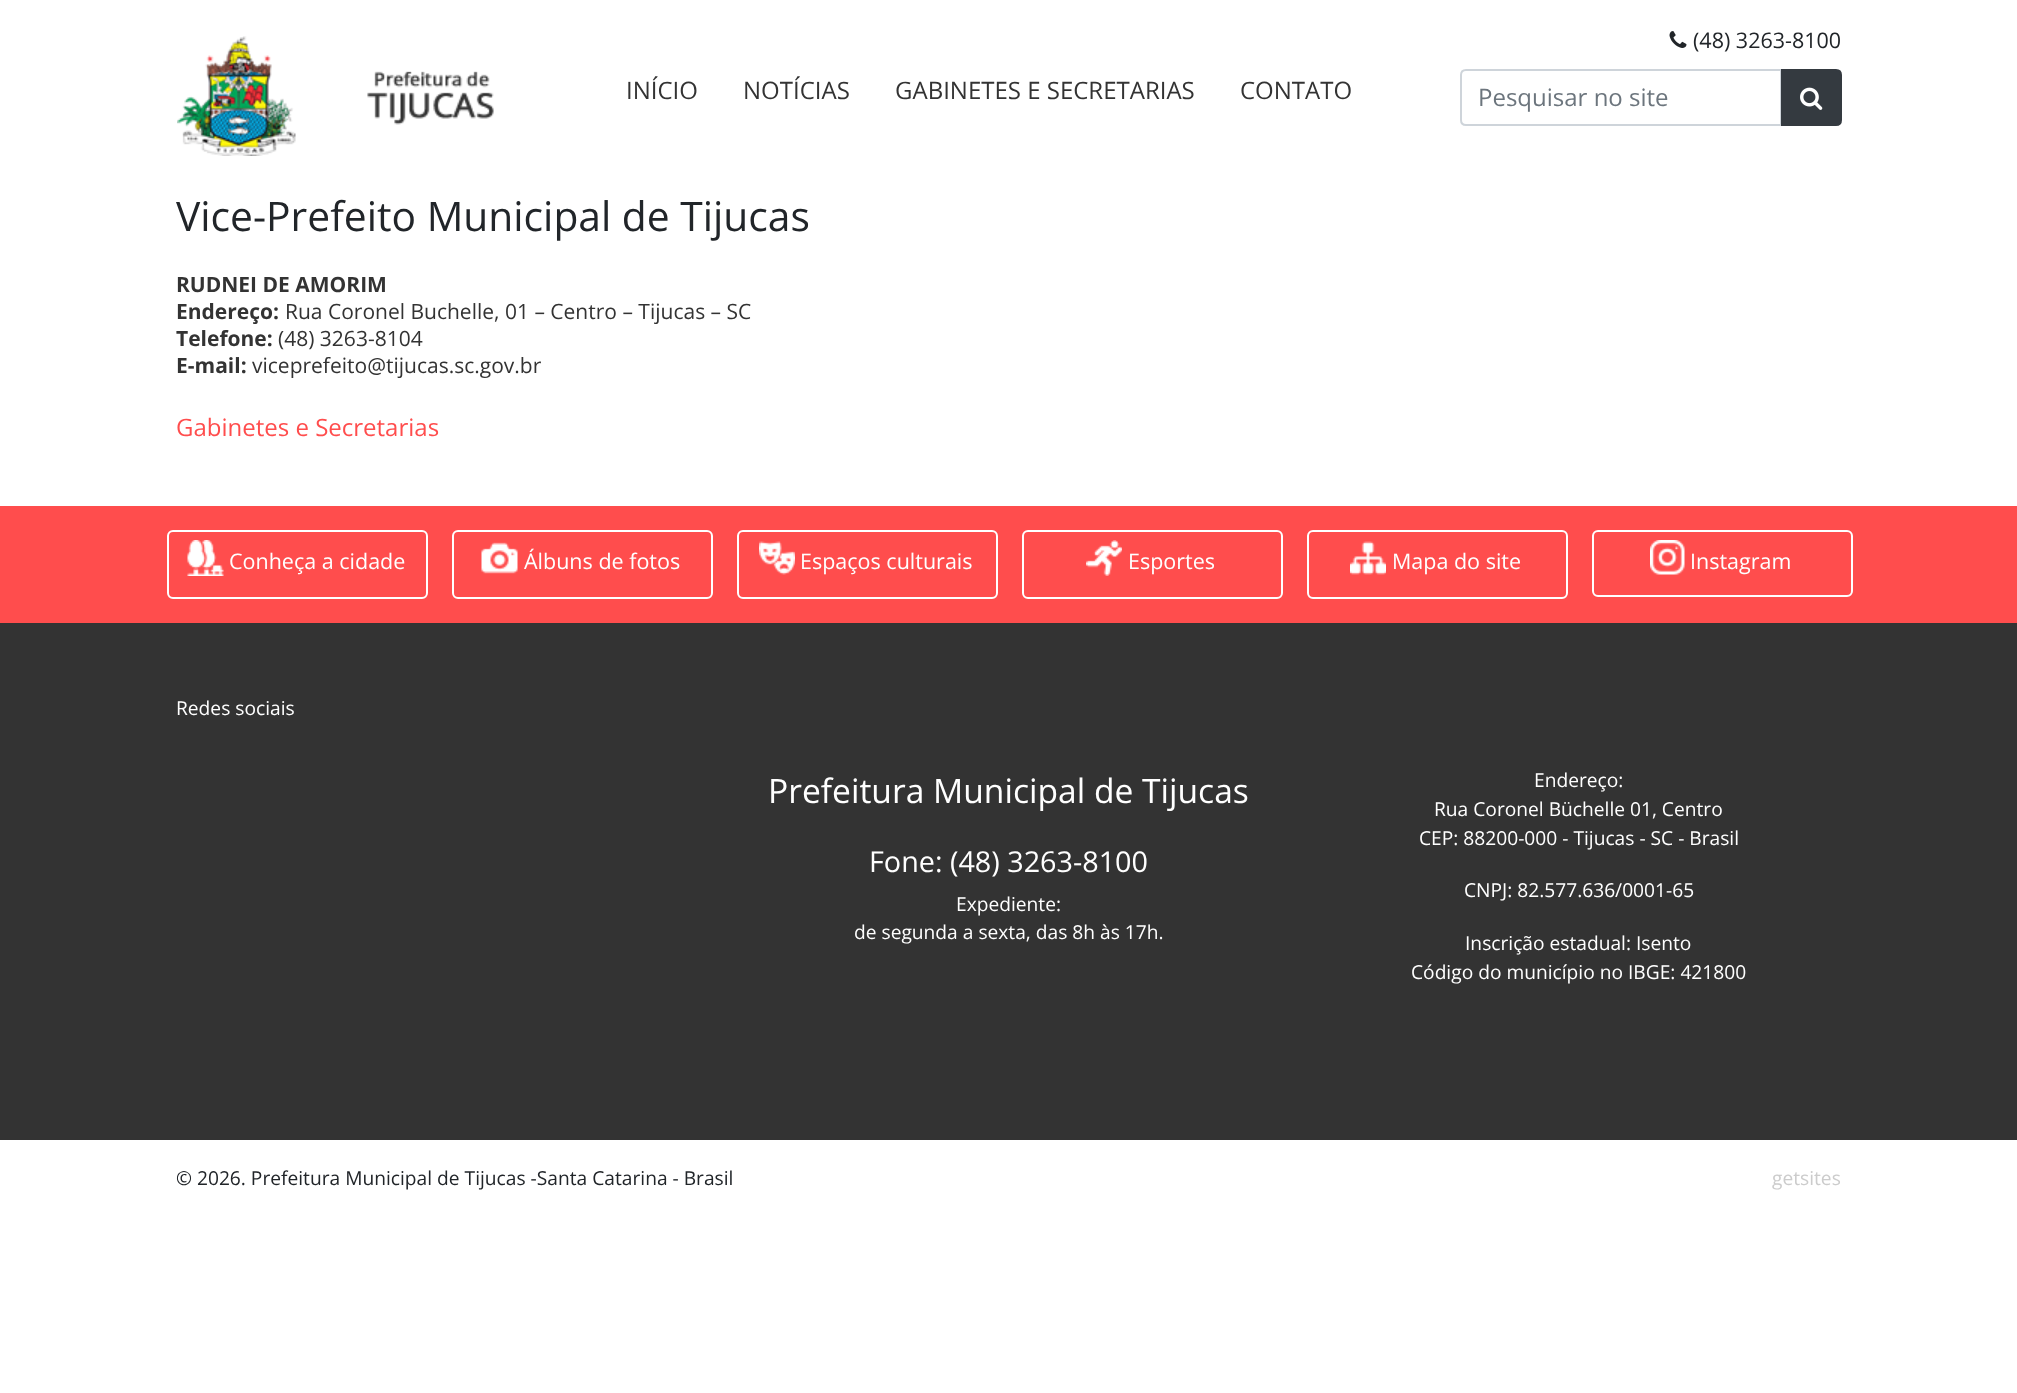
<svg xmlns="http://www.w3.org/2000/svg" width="2017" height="1393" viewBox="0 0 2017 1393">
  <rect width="100%" height="100%" fill="#ffffff"/>
  <image x="177" y="36" width="317" height="120" href="img1.png"/>
  <text x="626" y="99" font-family="Open Sans" font-size="24" fill="#333333">INÍCIO</text>
  <text x="743" y="99" font-family="Open Sans" font-size="24" fill="#333333">NOTÍCIAS</text>
  <text x="895" y="99" font-family="Open Sans" font-size="24" fill="#333333">GABINETES E SECRETARIAS</text>
  <text x="1240" y="99" font-family="Open Sans" font-size="24" fill="#333333">CONTATO</text>
  <image x="1669" y="31" width="18" height="17" href="img2.png"/>
  <text x="1693" y="48" font-family="Open Sans" font-size="21.5" fill="#212529">(48) 3263-8100</text>
  <path d="M1466 70H1781V125H1466C1463 125 1461 123 1461 120V75C1461 72 1463 70 1466 70Z" fill="none" stroke="#ced4da" stroke-width="2"/>
  <text x="1478" y="106" font-family="Open Sans" font-size="24" fill="#6c757d">Pesquisar no site</text>
  <path d="M1782 70H1836C1839 70 1841 72 1841 75V120C1841 123 1839 125 1836 125H1782Z" fill="#343a40" stroke="#343a40" stroke-width="2"/>
  <image x="1800" y="87" width="23" height="23" href="img3.png"/>
  <text x="176" y="231" font-family="Open Sans" font-size="40.75" fill="#212529">Vice-Prefeito Municipal de Tijucas</text>
  <text x="176" y="292" font-family="Open Sans" font-size="21" font-weight="bold" fill="#333333">RUDNEI DE AMORIM</text>
  <text x="176" y="319" font-family="Open Sans" font-size="21" font-weight="bold" fill="#333333">Endereço:</text>
  <text x="285" y="319" font-family="Open Sans" font-size="21" fill="#333333">Rua Coronel Buchelle, 01 – Centro – Tijucas – SC</text>
  <text x="176" y="346" font-family="Open Sans" font-size="21" font-weight="bold" fill="#333333">Telefone:</text>
  <text x="278" y="346" font-family="Open Sans" font-size="21" fill="#333333">(48) 3263-8104</text>
  <text x="176" y="373" font-family="Open Sans" font-size="21" font-weight="bold" fill="#333333">E-mail:</text>
  <text x="252" y="373" font-family="Open Sans" font-size="21" fill="#333333">viceprefeito@tijucas.sc.gov.br</text>
  <text x="176" y="436" font-family="Open Sans" font-size="24" fill="#ff4d4d">Gabinetes e Secretarias</text>
  <rect x="0" y="506" width="2017" height="117" fill="#ff4d4d"/>
  <rect x="168" y="531" width="259" height="67" rx="5" fill="none" stroke="#ffffff" stroke-width="2"/>
  <image x="187" y="540" width="37" height="36" href="img4.png"/>
  <text x="229" y="569" font-family="Open Sans" font-size="21.5" fill="#ffffff">Conheça a cidade</text>
  <rect x="453" y="531" width="259" height="67" rx="5" fill="none" stroke="#ffffff" stroke-width="2"/>
  <image x="481" y="542" width="37" height="32" href="img5.png"/>
  <text x="524" y="569" font-family="Open Sans" font-size="21.5" fill="#ffffff">Álbuns de fotos</text>
  <rect x="738" y="531" width="259" height="67" rx="5" fill="none" stroke="#ffffff" stroke-width="2"/>
  <image x="759" y="541" width="36" height="34" href="img6.png"/>
  <text x="800" y="569" font-family="Open Sans" font-size="21.5" fill="#ffffff">Espaços culturais</text>
  <rect x="1023" y="531" width="259" height="67" rx="5" fill="none" stroke="#ffffff" stroke-width="2"/>
  <image x="1086" y="540" width="36" height="36" href="img7.png"/>
  <text x="1128" y="569" font-family="Open Sans" font-size="21.5" fill="#ffffff">Esportes</text>
  <rect x="1308" y="531" width="259" height="67" rx="5" fill="none" stroke="#ffffff" stroke-width="2"/>
  <image x="1350" y="541" width="36" height="34" href="img8.png"/>
  <text x="1392" y="569" font-family="Open Sans" font-size="21.5" fill="#ffffff">Mapa do site</text>
  <rect x="1593" y="531" width="259" height="65" rx="5" fill="none" stroke="#ffffff" stroke-width="2"/>
  <image x="1650" y="540" width="35" height="35" href="img9.png"/>
  <text x="1690" y="569" font-family="Open Sans" font-size="21.5" fill="#ffffff">Instagram</text>
  <rect x="0" y="623" width="2017" height="517" fill="#333333"/>
  <text x="176" y="715" font-family="Open Sans" font-size="19.2" fill="#ffffff">Redes sociais</text>
  <text x="768" y="803" font-family="Open Sans" font-size="33.6" fill="#ffffff">Prefeitura Municipal de Tijucas</text>
  <text x="869" y="872" font-family="Open Sans" font-size="28.75" fill="#ffffff">Fone: (48) 3263-8100</text>
  <text x="956" y="911" font-family="Open Sans" font-size="19.2" fill="#ffffff">Expediente:</text>
  <text x="854" y="939" font-family="Open Sans" font-size="19.2" fill="#ffffff">de segunda a sexta, das 8h às 17h.</text>
  <text x="1534" y="787" font-family="Open Sans" font-size="19.2" fill="#ffffff">Endereço:</text>
  <text x="1434" y="816" font-family="Open Sans" font-size="19.2" fill="#ffffff">Rua Coronel Büchelle 01, Centro</text>
  <text x="1419" y="845" font-family="Open Sans" font-size="19.2" fill="#ffffff">CEP: 88200-000 - Tijucas - SC - Brasil</text>
  <text x="1464" y="897" font-family="Open Sans" font-size="19.2" fill="#ffffff">CNPJ: 82.577.636/0001-65</text>
  <text x="1465" y="950" font-family="Open Sans" font-size="19.2" fill="#ffffff">Inscrição estadual: Isento</text>
  <text x="1411" y="979" font-family="Open Sans" font-size="19.2" fill="#ffffff">Código do município no IBGE: 421800</text>
  <text x="176" y="1185" font-family="Open Sans" font-size="19.2" fill="#212529">© 2026. Prefeitura Municipal de Tijucas -Santa Catarina - Brasil</text>
  <text x="1772" y="1185" font-family="Open Sans" font-size="19.2" fill="#cccccc">getsites</text>
</svg>
